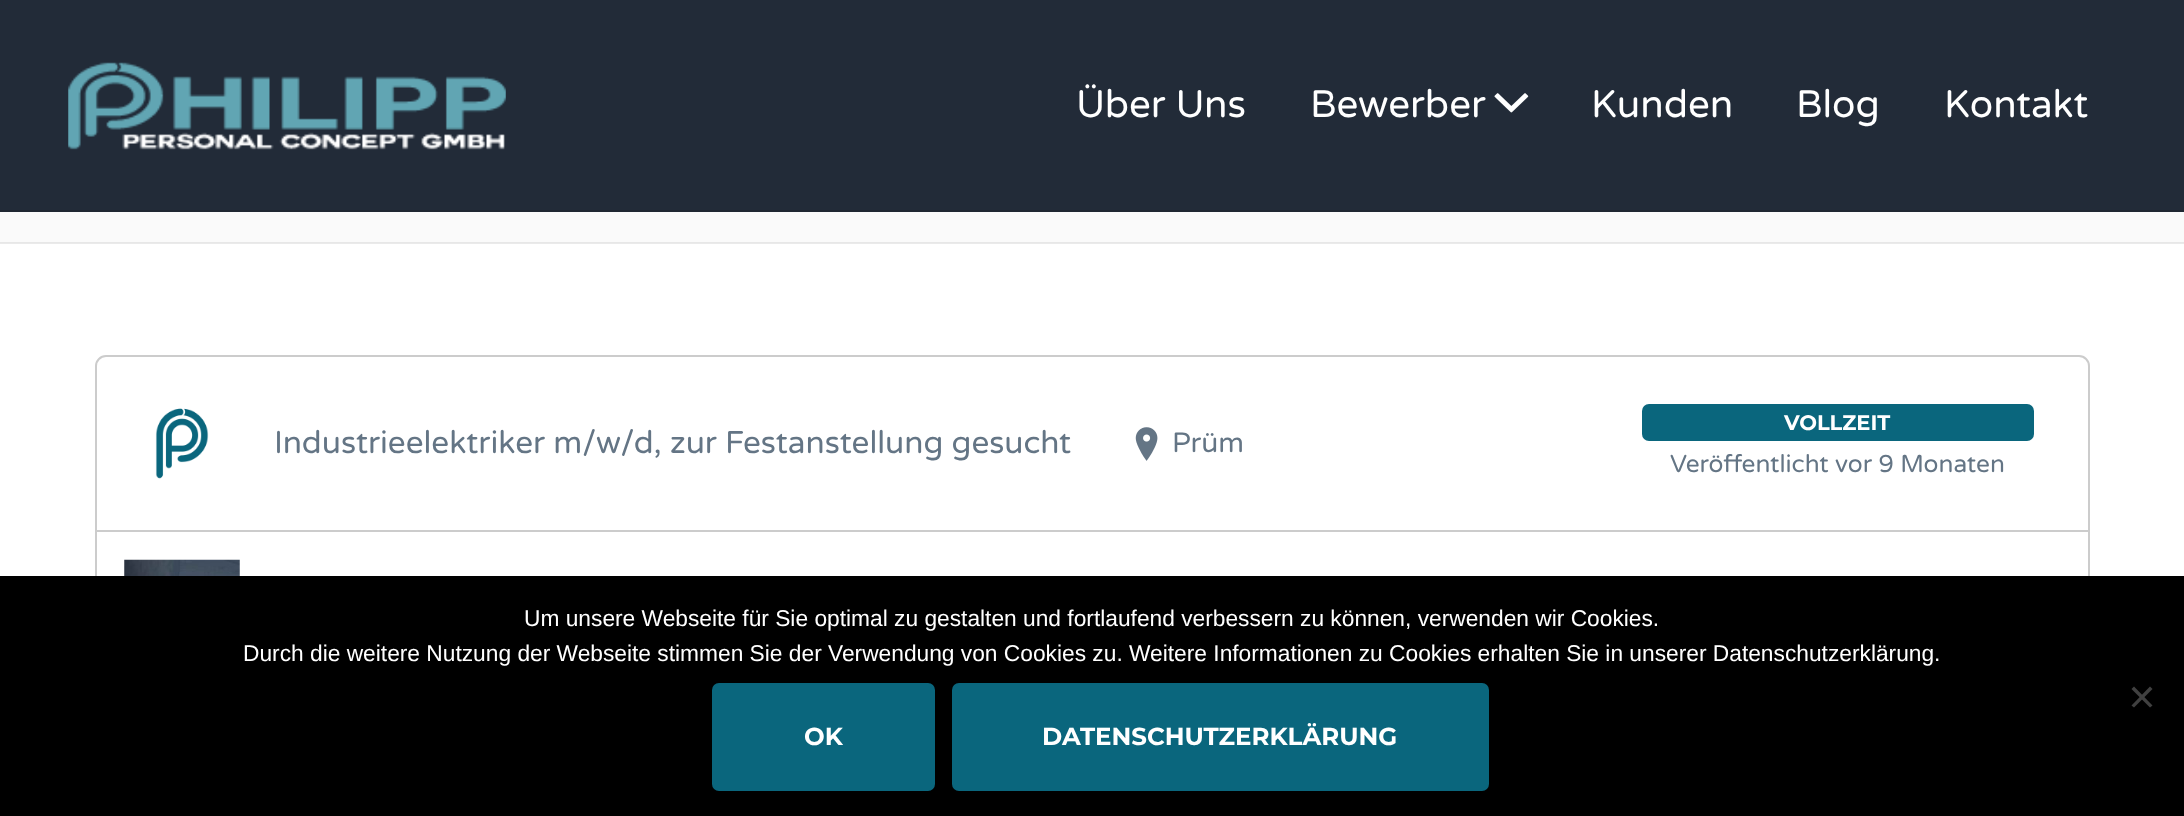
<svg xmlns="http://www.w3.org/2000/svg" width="2184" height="816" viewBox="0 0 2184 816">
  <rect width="100%" height="100%" fill="#ffffff"/>
  <rect x="0" y="243" width="2184" height="1" fill="#eaeaea"/>
  <rect x="0" y="0" width="2184" height="210" fill="#222b38"/>
  <rect x="0" y="210" width="2184" height="2" fill="#1f2732"/>
  <image x="68" y="62" width="438" height="88" href="img1.png"/>
  <text x="1076" y="117" font-family="Varela Round" font-size="38.5" fill="#ffffff">Über Uns</text>
  <text x="1310" y="117" font-family="Varela Round" font-size="38.5" fill="#ffffff">Bewerber</text>
  <image x="1494" y="93" width="35" height="20" href="img2.png"/>
  <text x="1591" y="117" font-family="Varela Round" font-size="38.5" fill="#ffffff">Kunden</text>
  <text x="1796" y="117" font-family="Varela Round" font-size="38.5" fill="#ffffff">Blog</text>
  <text x="1944" y="117" font-family="Varela Round" font-size="38.5" fill="#ffffff">Kontakt</text>
  <rect x="0" y="212" width="2184" height="30" fill="#fafafa"/>
  <rect x="0" y="242" width="2184" height="1" fill="#e7e7e7"/>
  <rect x="96" y="356" width="1993" height="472" rx="10" fill="none" stroke="#cccccc" stroke-width="2"/>
  <rect x="96" y="530" width="1992" height="2" fill="#cccccc"/>
  <image x="155" y="408" width="54" height="71" href="img3.png"/>
  <text x="274" y="453" font-family="Varela Round" font-size="31.5" fill="#647585">Industrieelektriker m/w/d, zur Festanstellung gesucht</text>
  <image x="1135" y="427" width="23" height="34" href="img4.png"/>
  <text x="1172" y="452" font-family="Varela Round" font-size="28" fill="#647585">Prüm</text>
  <rect x="1642" y="404" width="392" height="37" rx="7" fill="#0a667d"/>
  <text x="1784" y="430" font-family="Montserrat" font-size="21" font-weight="bold" fill="#ffffff">VOLLZEIT</text>
  <text x="1670" y="472" font-family="Varela Round" font-size="24.5" fill="#647585">Veröffentlicht vor 9 Monaten</text>
  <image x="124" y="559" width="116" height="17" href="img5.png"/>
  <rect x="0" y="576" width="2184" height="240" fill="#000000"/>
  <text x="524" y="626" font-family="Liberation Sans" font-size="22.75" fill="#ffffff">Um unsere Webseite für Sie optimal zu gestalten und fortlaufend verbessern zu können, verwenden wir Cookies.</text>
  <text x="243" y="661" font-family="Liberation Sans" font-size="22.75" fill="#ffffff">Durch die weitere Nutzung der Webseite stimmen Sie der Verwendung von Cookies zu. Weitere Informationen zu Cookies erhalten Sie in unserer Datenschutzerklärung.</text>
  <path d="M2150 686.5L2152.5 689L2134 707.5L2131.5 705.5Z" fill="#404040"/>
  <path d="M2131.5 689L2134 686.5L2152.5 705.5L2150 707.5Z" fill="#404040"/>
  <rect x="712" y="683" width="223" height="108" rx="7" fill="#0a667d"/>
  <text x="804" y="745" font-family="Montserrat" font-size="24.5" font-weight="bold" fill="#ffffff">OK</text>
  <rect x="952" y="683" width="537" height="108" rx="7" fill="#0a667d"/>
  <text x="1042" y="745" font-family="Montserrat" font-size="24.5" font-weight="bold" fill="#ffffff">DATENSCHUTZERKLÄRUNG</text>
</svg>
